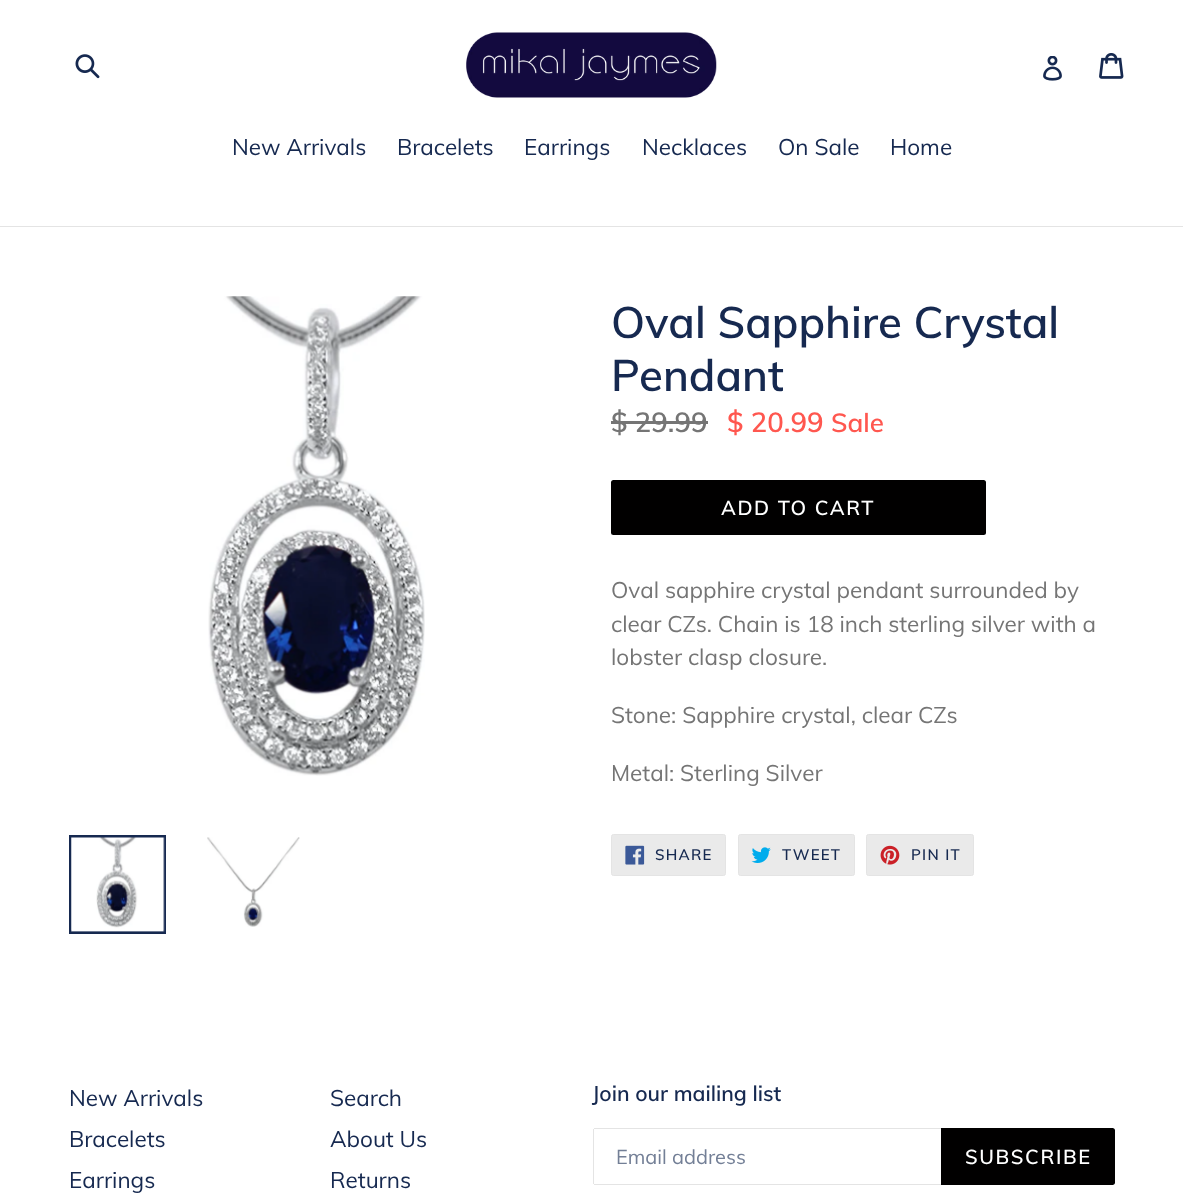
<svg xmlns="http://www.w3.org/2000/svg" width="1183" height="1195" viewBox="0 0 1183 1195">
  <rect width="100%" height="100%" fill="#ffffff"/>
  <image x="75" y="54" width="25" height="25" href="img1.png"/>
  <image x="466" y="32" width="251" height="66" href="img2.png"/>
  <image x="1043" y="56" width="19" height="25" href="img3.png"/>
  <image x="1099" y="53" width="25" height="26" href="img4.png"/>
  <rect x="0" y="226" width="1183" height="1" fill="#e4e4e4"/>
  <text x="232" y="155" font-family="Muli" font-size="22.5" fill="#162950">New Arrivals</text>
  <text x="397" y="155" font-family="Muli" font-size="22.5" fill="#162950">Bracelets</text>
  <text x="524" y="155" font-family="Muli" font-size="22.5" fill="#162950">Earrings</text>
  <text x="642" y="155" font-family="Muli" font-size="22.5" fill="#162950">Necklaces</text>
  <text x="778" y="155" font-family="Muli" font-size="22.5" fill="#162950">On Sale</text>
  <text x="890" y="155" font-family="Muli" font-size="22.5" fill="#162950">Home</text>
  <image x="208" y="296" width="217" height="480" href="img5.png"/>
  <rect x="70.5" y="836.5" width="94" height="96" fill="none" stroke="#162950" stroke-width="3"/>
  <image x="71" y="837" width="94" height="95" href="img6.png"/>
  <image x="207" y="837" width="93" height="90" href="img7.png"/>
  <text x="611" y="338" font-family="Muli" font-size="43.75" font-weight="600" fill="#162950">Oval Sapphire Crystal</text>
  <text x="611" y="391" font-family="Muli" font-size="43.75" font-weight="600" fill="#162950">Pendant</text>
  <text x="611" y="432" font-family="Muli" font-size="27.5" font-weight="600" fill="#757575">$ 29.99</text>
  <rect x="611" y="421" width="97" height="3" fill="#757575"/>
  <text x="727" y="432" font-family="Muli" font-size="27.5" font-weight="600" fill="#ff574f">$ 20.99</text>
  <text x="831" y="432" font-family="Muli" font-size="26" font-weight="600" fill="#ff574f">Sale</text>
  <rect x="611" y="480" width="375" height="55" rx="2.5" fill="#010000"/>
  <text x="721" y="515" font-family="Muli" font-size="20" font-weight="600" letter-spacing="1.6" fill="#ffffff">ADD TO CART</text>
  <text x="611" y="598" font-family="Muli" font-size="22.5" fill="#757575">Oval sapphire crystal pendant surrounded by</text>
  <text x="611" y="632" font-family="Muli" font-size="22.5" fill="#757575">clear CZs. Chain is 18 inch sterling silver with a</text>
  <text x="611" y="665" font-family="Muli" font-size="22.5" fill="#757575">lobster clasp closure.</text>
  <text x="611" y="723" font-family="Muli" font-size="22.5" fill="#757575">Stone: Sapphire crystal, clear CZs</text>
  <text x="611" y="781" font-family="Muli" font-size="22.5" fill="#757575">Metal: Sterling Silver</text>
  <rect x="611.5" y="834.5" width="114" height="41" rx="2" fill="#eaeaea" stroke="#e4e4e4"/>
  <image x="625" y="845" width="20" height="20" href="img8.png"/>
  <text x="655" y="860" font-family="Muli" font-size="15" font-weight="600" letter-spacing="1.25" fill="#162950">SHARE</text>
  <rect x="738.5" y="834.5" width="116" height="41" rx="2" fill="#eaeaea" stroke="#e4e4e4"/>
  <image x="751" y="847" width="20" height="16" href="img9.png"/>
  <text x="782" y="860" font-family="Muli" font-size="15" font-weight="600" letter-spacing="1.25" fill="#162950">TWEET</text>
  <rect x="866.5" y="834.5" width="107" height="41" rx="2" fill="#eaeaea" stroke="#e4e4e4"/>
  <image x="880" y="845" width="20" height="20" href="img10.png"/>
  <text x="911" y="860" font-family="Muli" font-size="15" font-weight="600" letter-spacing="1.25" fill="#162950">PIN IT</text>
  <text x="69" y="1106" font-family="Muli" font-size="22.5" fill="#162950">New Arrivals</text>
  <text x="69" y="1147" font-family="Muli" font-size="22.5" fill="#162950">Bracelets</text>
  <text x="69" y="1188" font-family="Muli" font-size="22.5" fill="#162950">Earrings</text>
  <text x="330" y="1106" font-family="Muli" font-size="22.5" fill="#162950">Search</text>
  <text x="330" y="1147" font-family="Muli" font-size="22.5" fill="#162950">About Us</text>
  <text x="330" y="1188" font-family="Muli" font-size="22.5" fill="#162950">Returns</text>
  <text x="592" y="1101" font-family="Muli" font-size="21.25" font-weight="600" fill="#162950">Join our mailing list</text>
  <rect x="594" y="1128" width="347" height="1" fill="#e4e4e4"/>
  <rect x="594" y="1184" width="347" height="1" fill="#e4e4e4"/>
  <rect x="593" y="1129" width="1" height="55" fill="#e4e4e4"/>
  <text x="616" y="1164" font-family="Muli" font-size="20" fill="#737f96">Email address</text>
  <path d="M941 1128H1112.5C1114 1128 1115 1129 1115 1130.5V1182.5C1115 1184 1114 1185 1112.5 1185H941Z" fill="#010000"/>
  <text x="965" y="1164" font-family="Muli" font-size="20" font-weight="600" letter-spacing="1.6" fill="#ffffff">SUBSCRIBE</text>
</svg>
